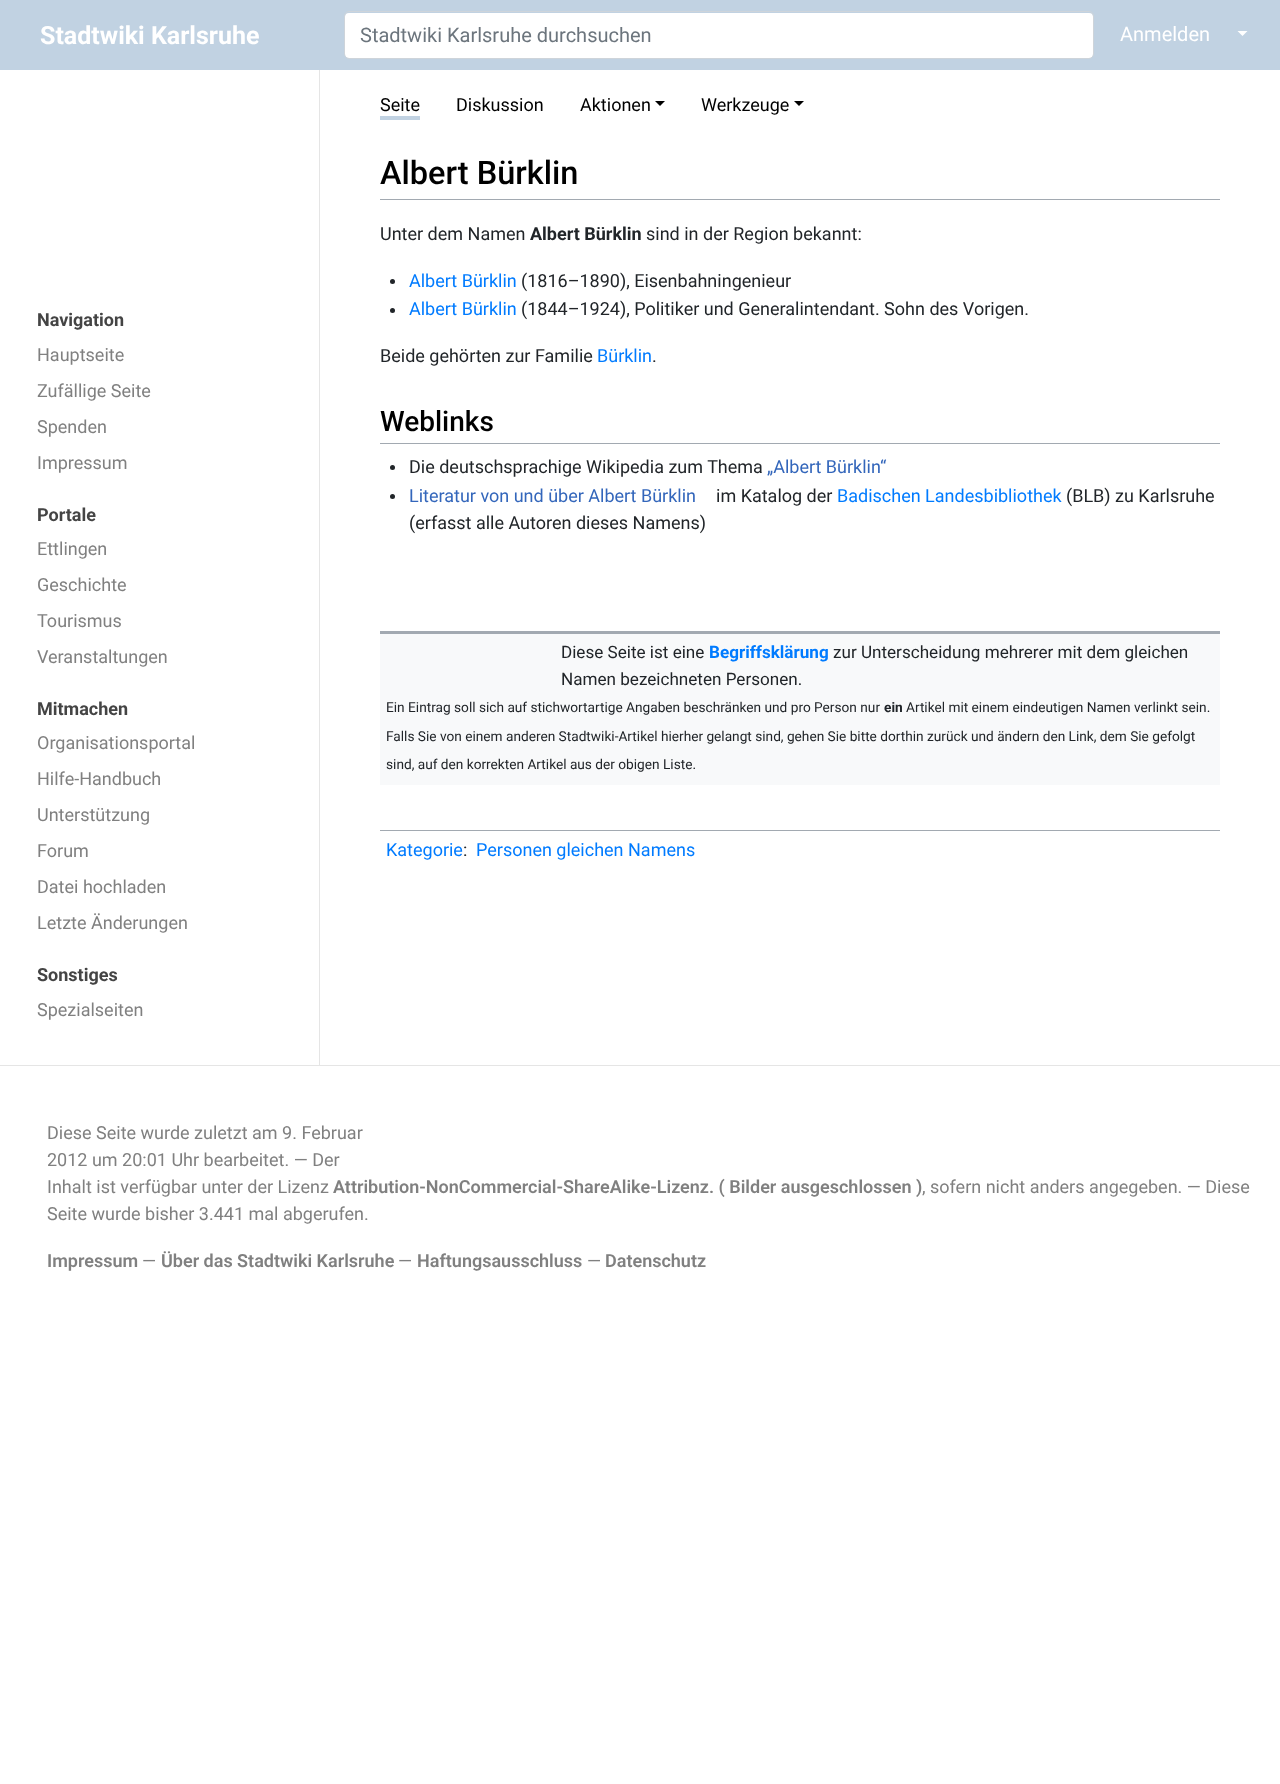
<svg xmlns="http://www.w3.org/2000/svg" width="1280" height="1784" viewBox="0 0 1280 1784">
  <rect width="100%" height="100%" fill="#ffffff"/>
  <rect x="0" y="0" width="1280" height="70" fill="#c1d2e2"/>
  <text x="40" y="44" font-family="Roboto" font-size="25" font-weight="bold" fill="#ffffff">Stadtwiki Karlsruhe</text>
  <rect x="345" y="13" width="748" height="45" rx="4" fill="#ffffff"/>
  <rect x="344.5" y="11.5" width="749" height="47" rx="4.5" fill="none" stroke="#ced4da"/>
  <text x="360" y="42" font-family="Roboto" font-size="20" fill="#6c757d">Stadtwiki Karlsruhe durchsuchen</text>
  <text x="1120" y="41" font-family="Roboto" font-size="20" fill="#ffffff">Anmelden</text>
  <path d="M1237.5 31H1247.5L1242.5 36Z" fill="#ffffff"/>
  <rect x="319" y="70" width="1" height="995" fill="#e5e5e5"/>
  <text x="37" y="326" font-family="Roboto" font-size="18" font-weight="bold" fill="#444444">Navigation</text>
  <text x="37" y="361" font-family="Roboto" font-size="18" fill="#808080">Hauptseite</text>
  <text x="37" y="397" font-family="Roboto" font-size="18" fill="#808080">Zufällige Seite</text>
  <text x="37" y="433" font-family="Roboto" font-size="18" fill="#808080">Spenden</text>
  <text x="37" y="469" font-family="Roboto" font-size="18" fill="#808080">Impressum</text>
  <text x="37" y="521" font-family="Roboto" font-size="18" font-weight="bold" fill="#444444">Portale</text>
  <text x="37" y="555" font-family="Roboto" font-size="18" fill="#808080">Ettlingen</text>
  <text x="37" y="591" font-family="Roboto" font-size="18" fill="#808080">Geschichte</text>
  <text x="37" y="627" font-family="Roboto" font-size="18" fill="#808080">Tourismus</text>
  <text x="37" y="663" font-family="Roboto" font-size="18" fill="#808080">Veranstaltungen</text>
  <text x="37" y="715" font-family="Roboto" font-size="18" font-weight="bold" fill="#444444">Mitmachen</text>
  <text x="37" y="749" font-family="Roboto" font-size="18" fill="#808080">Organisationsportal</text>
  <text x="37" y="785" font-family="Roboto" font-size="18" fill="#808080">Hilfe-Handbuch</text>
  <text x="37" y="821" font-family="Roboto" font-size="18" fill="#808080">Unterstützung</text>
  <text x="37" y="857" font-family="Roboto" font-size="18" fill="#808080">Forum</text>
  <text x="37" y="893" font-family="Roboto" font-size="18" fill="#808080">Datei hochladen</text>
  <text x="37" y="929" font-family="Roboto" font-size="18" fill="#808080">Letzte Änderungen</text>
  <text x="37" y="981" font-family="Roboto" font-size="18" font-weight="bold" fill="#444444">Sonstiges</text>
  <text x="37" y="1016" font-family="Roboto" font-size="18" fill="#808080">Spezialseiten</text>
  <text x="380" y="111" font-family="Roboto" font-size="18" fill="#000000">Seite</text>
  <rect x="380" y="116" width="40" height="4" fill="#c1d2e2"/>
  <text x="456" y="111" font-family="Roboto" font-size="18" fill="#000000">Diskussion</text>
  <text x="580" y="111" font-family="Roboto" font-size="18" fill="#000000">Aktionen</text>
  <path d="M655 101H665L660 106Z" fill="#000000"/>
  <text x="701" y="111" font-family="Roboto" font-size="18" fill="#000000">Werkzeuge</text>
  <path d="M794 101H804L799 106Z" fill="#000000"/>
  <rect x="380" y="199" width="840" height="1" fill="#a2a9b1"/>
  <text x="380" y="184" font-family="Roboto" font-size="32.5" font-weight="500" fill="#000000">Albert Bürklin</text>
  <text x="380" y="240" font-family="Roboto" font-size="18" fill="#212529">Unter dem Namen</text>
  <text x="530" y="240" font-family="Roboto" font-size="18" font-weight="bold" fill="#212529">Albert Bürklin</text>
  <text x="646" y="240" font-family="Roboto" font-size="18" fill="#212529">sind in der Region bekannt:</text>
  <circle cx="392.5" cy="281.5" r="2.5" fill="#212529"/>
  <text x="409" y="287" font-family="Roboto" font-size="18" fill="#007bff">Albert Bürklin</text>
  <text x="521" y="287" font-family="Roboto" font-size="18" fill="#212529">(1816–1890), Eisenbahningenieur</text>
  <circle cx="392.5" cy="310.5" r="2.5" fill="#212529"/>
  <text x="409" y="315" font-family="Roboto" font-size="18" fill="#007bff">Albert Bürklin</text>
  <text x="521" y="315" font-family="Roboto" font-size="18" fill="#212529">(1844–1924), Politiker und Generalintendant. Sohn des Vorigen.</text>
  <text x="380" y="362" font-family="Roboto" font-size="18" fill="#212529">Beide gehörten zur Familie</text>
  <text x="597" y="362" font-family="Roboto" font-size="18" fill="#007bff">Bürklin</text>
  <text x="652" y="362" font-family="Roboto" font-size="18" fill="#212529">.</text>
  <rect x="380" y="443" width="840" height="1" fill="#a2a9b1"/>
  <text x="380" y="431" font-family="Roboto" font-size="28" font-weight="500" fill="#000000">Weblinks</text>
  <circle cx="392.5" cy="467.5" r="2.5" fill="#212529"/>
  <text x="409" y="473" font-family="Roboto" font-size="18" fill="#212529">Die deutschsprachige Wikipedia zum Thema</text>
  <text x="767" y="473" font-family="Roboto" font-size="18" fill="#3366bb">„Albert Bürklin“</text>
  <circle cx="392.5" cy="496.5" r="2.5" fill="#212529"/>
  <text x="409" y="502" font-family="Roboto" font-size="18" fill="#3366bb">Literatur von und über Albert Bürklin</text>
  <text x="716" y="502" font-family="Roboto" font-size="18" fill="#212529">im Katalog der</text>
  <text x="837" y="502" font-family="Roboto" font-size="18" fill="#007bff">Badischen Landesbibliothek</text>
  <text x="1066" y="502" font-family="Roboto" font-size="18" fill="#212529">(BLB) zu Karlsruhe</text>
  <text x="409" y="529" font-family="Roboto" font-size="18" fill="#212529">(erfasst alle Autoren dieses Namens)</text>
  <rect x="380" y="634" width="840" height="151" fill="#f8f9fa"/>
  <rect x="380" y="631" width="840" height="3" fill="#a2a9b1"/>
  <text x="561" y="658" font-family="Roboto" font-size="17.1" fill="#212529">Diese Seite ist eine</text>
  <text x="709" y="658" font-family="Roboto" font-size="17.1" font-weight="bold" fill="#007bff">Begriffsklärung</text>
  <text x="833" y="658" font-family="Roboto" font-size="17.1" fill="#212529">zur Unterscheidung mehrerer mit dem gleichen</text>
  <text x="561" y="685" font-family="Roboto" font-size="17.1" fill="#212529">Namen bezeichneten Personen.</text>
  <text x="386" y="712" font-family="Roboto" font-size="13.68" fill="#212529">Ein Eintrag soll sich auf stichwortartige Angaben beschränken und pro Person nur</text>
  <text x="884" y="712" font-family="Roboto" font-size="13.68" font-weight="bold" fill="#212529">ein</text>
  <text x="906" y="712" font-family="Roboto" font-size="13.68" fill="#212529">Artikel mit einem eindeutigen Namen verlinkt sein.</text>
  <text x="386" y="741" font-family="Roboto" font-size="13.68" fill="#212529">Falls Sie von einem anderen Stadtwiki-Artikel hierher gelangt sind, gehen Sie bitte dorthin zurück und ändern den Link, dem Sie gefolgt</text>
  <text x="386" y="769" font-family="Roboto" font-size="13.68" fill="#212529">sind, auf den korrekten Artikel aus der obigen Liste.</text>
  <rect x="380" y="830" width="840" height="1" fill="#a2a9b1"/>
  <text x="386" y="856" font-family="Roboto" font-size="18" fill="#007bff">Kategorie</text>
  <text x="463" y="856" font-family="Roboto" font-size="18" fill="#212529">:</text>
  <text x="476" y="856" font-family="Roboto" font-size="18" fill="#007bff">Personen gleichen Namens</text>
  <rect x="0" y="1065" width="1280" height="1" fill="#e5e5e5"/>
  <text x="47" y="1139" font-family="Roboto" font-size="18" fill="#808080">Diese Seite wurde zuletzt am 9. Februar</text>
  <text x="47" y="1166" font-family="Roboto" font-size="18" fill="#808080">2012 um 20:01 Uhr bearbeitet. ― Der</text>
  <text x="47" y="1193" font-family="Roboto" font-size="18" fill="#808080">Inhalt ist verfügbar unter der Lizenz</text>
  <text x="333" y="1193" font-family="Roboto" font-size="18" font-weight="600" fill="#808080">Attribution-NonCommercial-ShareAlike-Lizenz. ( Bilder ausgeschlossen )</text>
  <text x="922" y="1193" font-family="Roboto" font-size="18" fill="#808080">, sofern nicht anders angegeben. ― Diese</text>
  <text x="47" y="1220" font-family="Roboto" font-size="18" fill="#808080">Seite wurde bisher 3.441 mal abgerufen.</text>
  <text x="47" y="1267" font-family="Roboto" font-size="18" font-weight="600" fill="#808080">Impressum</text>
  <text x="142" y="1267" font-family="Roboto" font-size="18" fill="#808080">―</text>
  <text x="161" y="1267" font-family="Roboto" font-size="18" font-weight="600" fill="#808080">Über das Stadtwiki Karlsruhe</text>
  <text x="398" y="1267" font-family="Roboto" font-size="18" fill="#808080">―</text>
  <text x="417" y="1267" font-family="Roboto" font-size="18" font-weight="600" fill="#808080">Haftungsausschluss</text>
  <text x="587" y="1267" font-family="Roboto" font-size="18" fill="#808080">―</text>
  <text x="605" y="1267" font-family="Roboto" font-size="18" font-weight="600" fill="#808080">Datenschutz</text>
</svg>
